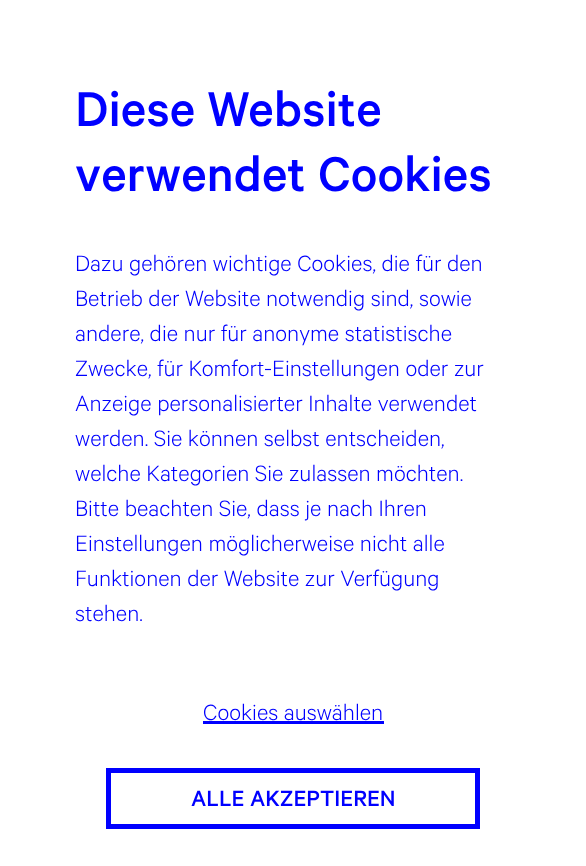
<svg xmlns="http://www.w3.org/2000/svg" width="586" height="866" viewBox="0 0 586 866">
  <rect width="100%" height="100%" fill="#ffffff"/>
  <text x="75" y="126" font-family="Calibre" font-size="55" font-weight="500" fill="#0000ff">Diese Website</text>
  <text x="75" y="191" font-family="Calibre" font-size="55" font-weight="500" fill="#0000ff">verwendet Cookies</text>
  <text x="75" y="271" font-family="Calibre" font-size="25" font-weight="300" fill="#0000ff">Dazu gehören wichtige Cookies, die für den</text>
  <text x="75" y="306" font-family="Calibre" font-size="25" font-weight="300" fill="#0000ff">Betrieb der Website notwendig sind, sowie</text>
  <text x="75" y="341" font-family="Calibre" font-size="25" font-weight="300" fill="#0000ff">andere, die nur für anonyme statistische</text>
  <text x="75" y="376" font-family="Calibre" font-size="25" font-weight="300" fill="#0000ff">Zwecke, für Komfort-Einstellungen oder zur</text>
  <text x="75" y="411" font-family="Calibre" font-size="25" font-weight="300" fill="#0000ff">Anzeige personalisierter Inhalte verwendet</text>
  <text x="75" y="446" font-family="Calibre" font-size="25" font-weight="300" fill="#0000ff">werden. Sie können selbst entscheiden,</text>
  <text x="75" y="481" font-family="Calibre" font-size="25" font-weight="300" fill="#0000ff">welche Kategorien Sie zulassen möchten.</text>
  <text x="75" y="516" font-family="Calibre" font-size="25" font-weight="300" fill="#0000ff">Bitte beachten Sie, dass je nach Ihren</text>
  <text x="75" y="551" font-family="Calibre" font-size="25" font-weight="300" fill="#0000ff">Einstellungen möglicherweise nicht alle</text>
  <text x="75" y="586" font-family="Calibre" font-size="25" font-weight="300" fill="#0000ff">Funktionen der Website zur Verfügung</text>
  <text x="75" y="621" font-family="Calibre" font-size="25" font-weight="300" fill="#0000ff">stehen.</text>
  <text x="203" y="720" font-family="Calibre" font-size="25" font-weight="300" fill="#0000ff">Cookies auswählen</text>
  <rect x="203" y="721" width="181" height="3" fill="#0000ff"/>
  <rect x="108.5" y="770.5" width="369" height="56" fill="none" stroke="#0000ff" stroke-width="5"/>
  <text x="191" y="806" font-family="Calibre" font-size="25" font-weight="500" fill="#0000ff">ALLE AKZEPTIEREN</text>
</svg>
